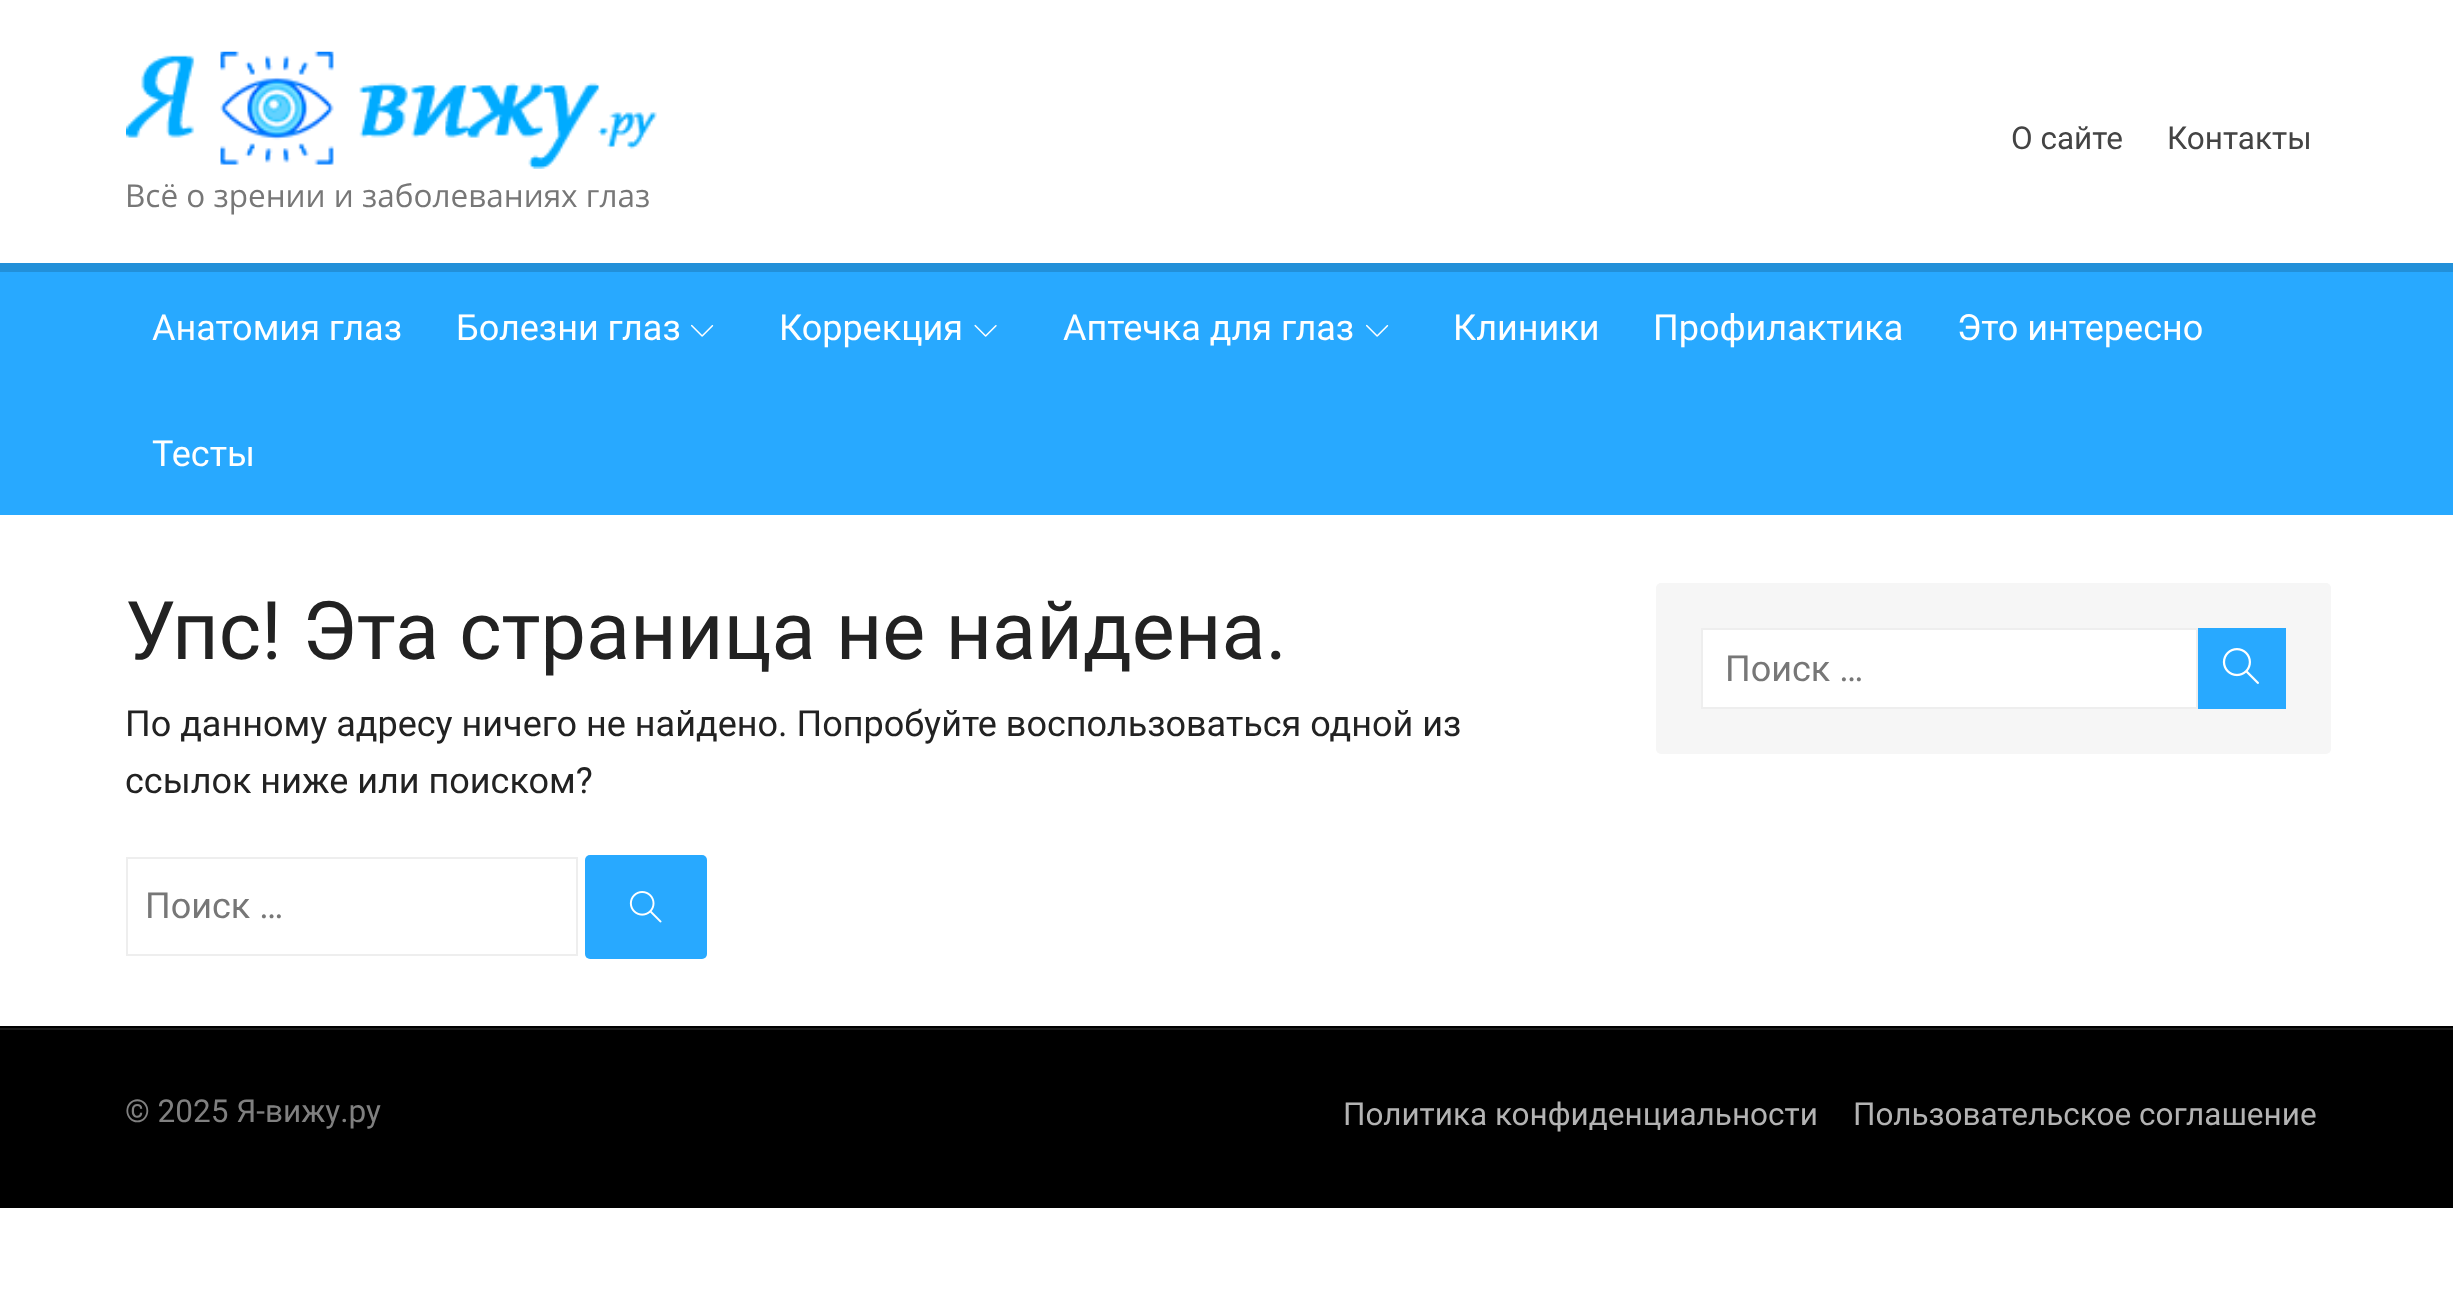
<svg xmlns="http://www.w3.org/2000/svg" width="2453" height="1290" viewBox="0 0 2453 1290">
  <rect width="100%" height="100%" fill="#ffffff"/>
  <text x="2011" y="149" font-family="Roboto" font-size="31.5" fill="#444444">О сайте</text>
  <text x="2167" y="149" font-family="Roboto" font-size="31.5" fill="#444444">Контакты</text>
  <image x="126" y="51" width="531" height="118" href="img1.png"/>
  <text x="125" y="207" font-family="Open Sans" font-size="31.5" fill="#777777">Всё о зрении и заболеваниях глаз</text>
  <rect x="0" y="272" width="2453" height="243" fill="#28a9ff"/>
  <rect x="0" y="263" width="2453" height="9" fill="#2290d9"/>
  <text x="152" y="340" font-family="Roboto" font-size="36" fill="#ffffff">Анатомия глаз</text>
  <text x="456" y="340" font-family="Roboto" font-size="36" fill="#ffffff">Болезни глаз</text>
  <image x="691" y="324" width="23" height="13" href="img2.png"/>
  <text x="779" y="340" font-family="Roboto" font-size="36" fill="#ffffff">Коррекция</text>
  <image x="974" y="324" width="23" height="13" href="img3.png"/>
  <text x="1063" y="340" font-family="Roboto" font-size="36" fill="#ffffff">Аптечка для глаз</text>
  <image x="1366" y="324" width="23" height="13" href="img2.png"/>
  <text x="1453" y="340" font-family="Roboto" font-size="36" fill="#ffffff">Клиники</text>
  <text x="1653" y="340" font-family="Roboto" font-size="36" fill="#ffffff">Профилактика</text>
  <text x="1957" y="340" font-family="Roboto" font-size="36" fill="#ffffff">Это интересно</text>
  <text x="152" y="466" font-family="Roboto" font-size="36" fill="#ffffff">Тесты</text>
  <text x="125" y="659" font-family="Roboto" font-size="81" fill="#222222">Упс! Эта страница не найдена.</text>
  <text x="125" y="736" font-family="Roboto" font-size="36" fill="#222222">По данному адресу ничего не найдено. Попробуйте воспользоваться одной из</text>
  <text x="125" y="793" font-family="Roboto" font-size="36" fill="#222222">ссылок ниже или поиском?</text>
  <rect x="127" y="858" width="450" height="97" fill="none" stroke="#eeeeee" stroke-width="2"/>
  <text x="145" y="918" font-family="Roboto" font-size="36" fill="#777777">Поиск …</text>
  <rect x="585" y="855" width="122" height="104" rx="5" fill="#28a9ff"/>
  <image x="629" y="891" width="33" height="32" href="img4.png"/>
  <rect x="1656" y="583" width="675" height="171" rx="5" fill="#f6f6f6"/>
  <rect x="1702" y="629" width="495" height="79" fill="#ffffff" stroke="#eeeeee" stroke-width="2"/>
  <text x="1725" y="681" font-family="Roboto" font-size="36" fill="#777777">Поиск …</text>
  <rect x="2198" y="628" width="88" height="81" fill="#28a9ff"/>
  <image x="2222" y="648" width="37" height="36" href="img5.png"/>
  <rect x="0" y="1026" width="2453" height="182" fill="#000000"/>
  <rect x="0" y="1028" width="2453" height="2" fill="#1a1a1a"/>
  <text x="125" y="1122" font-family="Roboto" font-size="31.5" fill="#808080">© 2025 Я-вижу.ру</text>
  <text x="1343" y="1125" font-family="Roboto" font-size="31.5" fill="#b3b3b3">Политика конфиденциальности</text>
  <text x="1853" y="1125" font-family="Roboto" font-size="31.5" fill="#b3b3b3">Пользовательское соглашение</text>
</svg>
